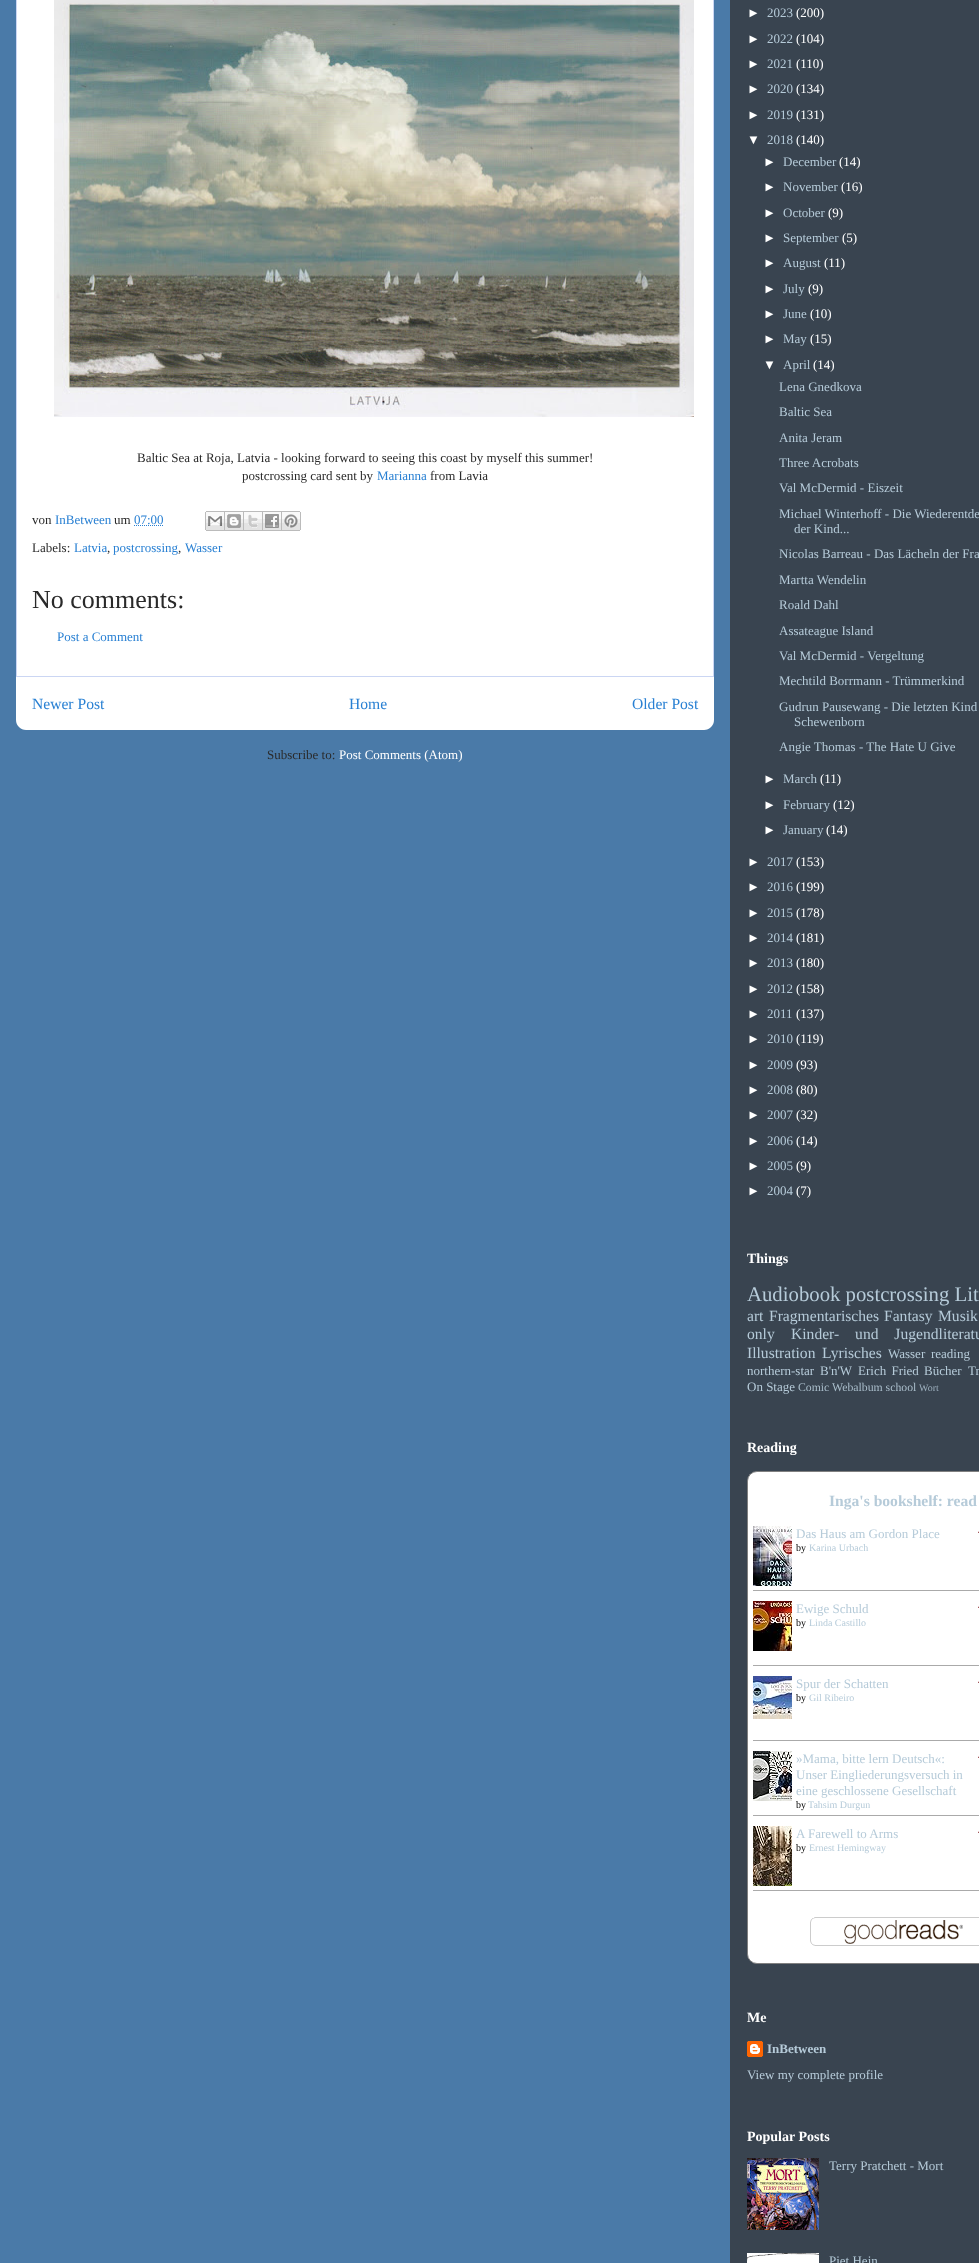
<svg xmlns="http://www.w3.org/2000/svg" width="979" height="2263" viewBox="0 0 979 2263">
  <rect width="100%" height="100%" fill="#4a7aa8"/>
  <rect x="16.5" y="-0.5" width="697" height="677" fill="#ffffff" stroke="#cbd6f3"/>
  <image x="54" y="0" width="640" height="417" href="img1.png"/>
  <text x="137" y="462" font-family="Liberation Serif" font-size="13" fill="#2a2a2a">Baltic Sea at Roja, Latvia - looking forward to seeing this coast by myself this summer!</text>
  <text x="242" y="480" font-family="Liberation Serif" font-size="13" fill="#2a2a2a">postcrossing card sent by</text>
  <text x="377" y="480" font-family="Liberation Serif" font-size="13" fill="#2980d3">Marianna</text>
  <text x="430" y="480" font-family="Liberation Serif" font-size="13" fill="#2a2a2a">from Lavia</text>
  <text x="32" y="524" font-family="Liberation Serif" font-size="13" fill="#2a2a2a">von</text>
  <text x="55" y="524" font-family="Liberation Serif" font-size="13" fill="#2980d3">InBetween</text>
  <text x="114" y="524" font-family="Liberation Serif" font-size="13" fill="#2a2a2a">um</text>
  <text x="134" y="524" font-family="Liberation Serif" font-size="13" fill="#2980d3">07:00</text>
  <path d="M134 525.5H164" fill="none" stroke="#2980d3" stroke-dasharray="1 1"/>
  <image x="205" y="511" width="20" height="20" href="img2.png"/>
  <image x="225" y="511" width="19" height="20" href="img3.png"/>
  <image x="244" y="511" width="19" height="20" href="img4.png"/>
  <image x="263" y="511" width="19" height="20" href="img5.png"/>
  <image x="282" y="511" width="19" height="20" href="img6.png"/>
  <text x="32" y="552" font-family="Liberation Serif" font-size="13" fill="#2a2a2a">Labels:</text>
  <text x="74" y="552" font-family="Liberation Serif" font-size="13" fill="#2980d3">Latvia</text>
  <text x="107" y="552" font-family="Liberation Serif" font-size="13" fill="#2a2a2a">,</text>
  <text x="113" y="552" font-family="Liberation Serif" font-size="13" fill="#2980d3">postcrossing</text>
  <text x="178" y="552" font-family="Liberation Serif" font-size="13" fill="#2a2a2a">,</text>
  <text x="185" y="552" font-family="Liberation Serif" font-size="13" fill="#2980d3">Wasser</text>
  <text x="32" y="608" font-family="Liberation Serif" font-size="26" fill="#2a2a2a">No comments:</text>
  <text x="57" y="641" font-family="Liberation Serif" font-size="13" fill="#2980d3">Post a Comment</text>
  <path d="M16 677H714V720C714 725.5 709.5 730 704 730H26C20.5 730 16 725.5 16 720Z" fill="#ffffff"/>
  <text x="32" y="709" font-family="Liberation Serif" font-size="15.6" fill="#2980d3">Newer Post</text>
  <text x="349" y="709" font-family="Liberation Serif" font-size="15.6" fill="#2980d3">Home</text>
  <text x="632" y="709" font-family="Liberation Serif" font-size="15.6" fill="#2980d3">Older Post</text>
  <text x="267" y="759" font-family="Liberation Serif" font-size="13" fill="#2a2a2a">Subscribe to:</text>
  <text x="339" y="759" font-family="Liberation Serif" font-size="13" fill="#ffffff">Post Comments (Atom)</text>
  <rect x="730" y="0" width="249" height="2263" fill="#394450"/>
  <text x="747" y="17" font-family="Liberation Sans" font-size="13" fill="#ffffff">►</text>
  <text x="767" y="17" font-family="Liberation Serif" font-size="13" fill="#b6cbd9">2023</text>
  <text x="796" y="17" font-family="Liberation Serif" font-size="13" fill="#ffffff">(200)</text>
  <text x="747" y="43" font-family="Liberation Sans" font-size="13" fill="#ffffff">►</text>
  <text x="767" y="43" font-family="Liberation Serif" font-size="13" fill="#b6cbd9">2022</text>
  <text x="796" y="43" font-family="Liberation Serif" font-size="13" fill="#ffffff">(104)</text>
  <text x="747" y="68" font-family="Liberation Sans" font-size="13" fill="#ffffff">►</text>
  <text x="767" y="68" font-family="Liberation Serif" font-size="13" fill="#b6cbd9">2021</text>
  <text x="796" y="68" font-family="Liberation Serif" font-size="13" fill="#ffffff">(110)</text>
  <text x="747" y="93" font-family="Liberation Sans" font-size="13" fill="#ffffff">►</text>
  <text x="767" y="93" font-family="Liberation Serif" font-size="13" fill="#b6cbd9">2020</text>
  <text x="796" y="93" font-family="Liberation Serif" font-size="13" fill="#ffffff">(134)</text>
  <text x="747" y="119" font-family="Liberation Sans" font-size="13" fill="#ffffff">►</text>
  <text x="767" y="119" font-family="Liberation Serif" font-size="13" fill="#b6cbd9">2019</text>
  <text x="796" y="119" font-family="Liberation Serif" font-size="13" fill="#ffffff">(131)</text>
  <text x="747" y="144" font-family="Liberation Sans" font-size="13" fill="#ffffff">▼</text>
  <text x="767" y="144" font-family="Liberation Serif" font-size="13" fill="#b6cbd9">2018</text>
  <text x="796" y="144" font-family="Liberation Serif" font-size="13" fill="#ffffff">(140)</text>
  <text x="763" y="166" font-family="Liberation Sans" font-size="13" fill="#ffffff">►</text>
  <text x="783" y="166" font-family="Liberation Serif" font-size="13" fill="#b6cbd9">December</text>
  <text x="839" y="166" font-family="Liberation Serif" font-size="13" fill="#ffffff">(14)</text>
  <text x="763" y="191" font-family="Liberation Sans" font-size="13" fill="#ffffff">►</text>
  <text x="783" y="191" font-family="Liberation Serif" font-size="13" fill="#b6cbd9">November</text>
  <text x="841" y="191" font-family="Liberation Serif" font-size="13" fill="#ffffff">(16)</text>
  <text x="763" y="217" font-family="Liberation Sans" font-size="13" fill="#ffffff">►</text>
  <text x="783" y="217" font-family="Liberation Serif" font-size="13" fill="#b6cbd9">October</text>
  <text x="828" y="217" font-family="Liberation Serif" font-size="13" fill="#ffffff">(9)</text>
  <text x="763" y="242" font-family="Liberation Sans" font-size="13" fill="#ffffff">►</text>
  <text x="783" y="242" font-family="Liberation Serif" font-size="13" fill="#b6cbd9">September</text>
  <text x="842" y="242" font-family="Liberation Serif" font-size="13" fill="#ffffff">(5)</text>
  <text x="763" y="267" font-family="Liberation Sans" font-size="13" fill="#ffffff">►</text>
  <text x="783" y="267" font-family="Liberation Serif" font-size="13" fill="#b6cbd9">August</text>
  <text x="824" y="267" font-family="Liberation Serif" font-size="13" fill="#ffffff">(11)</text>
  <text x="763" y="293" font-family="Liberation Sans" font-size="13" fill="#ffffff">►</text>
  <text x="783" y="293" font-family="Liberation Serif" font-size="13" fill="#b6cbd9">July</text>
  <text x="808" y="293" font-family="Liberation Serif" font-size="13" fill="#ffffff">(9)</text>
  <text x="763" y="318" font-family="Liberation Sans" font-size="13" fill="#ffffff">►</text>
  <text x="783" y="318" font-family="Liberation Serif" font-size="13" fill="#b6cbd9">June</text>
  <text x="810" y="318" font-family="Liberation Serif" font-size="13" fill="#ffffff">(10)</text>
  <text x="763" y="343" font-family="Liberation Sans" font-size="13" fill="#ffffff">►</text>
  <text x="783" y="343" font-family="Liberation Serif" font-size="13" fill="#b6cbd9">May</text>
  <text x="810" y="343" font-family="Liberation Serif" font-size="13" fill="#ffffff">(15)</text>
  <text x="763" y="369" font-family="Liberation Sans" font-size="13" fill="#ffffff">▼</text>
  <text x="783" y="369" font-family="Liberation Serif" font-size="13" fill="#b6cbd9">April</text>
  <text x="813" y="369" font-family="Liberation Serif" font-size="13" fill="#ffffff">(14)</text>
  <text x="779" y="391" font-family="Liberation Serif" font-size="13" fill="#b6cbd9">Lena Gnedkova</text>
  <text x="779" y="416" font-family="Liberation Serif" font-size="13" fill="#b6cbd9">Baltic Sea</text>
  <text x="779" y="442" font-family="Liberation Serif" font-size="13" fill="#b6cbd9">Anita Jeram</text>
  <text x="779" y="467" font-family="Liberation Serif" font-size="13" fill="#b6cbd9">Three Acrobats</text>
  <text x="779" y="492" font-family="Liberation Serif" font-size="13" fill="#b6cbd9">Val McDermid - Eiszeit</text>
  <text x="779" y="518" font-family="Liberation Serif" font-size="13" fill="#b6cbd9">Michael Winterhoff - Die Wiederentde</text>
  <text x="794" y="533" font-family="Liberation Serif" font-size="13" fill="#b6cbd9">der Kind...</text>
  <text x="779" y="558" font-family="Liberation Serif" font-size="13" fill="#b6cbd9">Nicolas Barreau - Das Lächeln der Fra</text>
  <text x="779" y="584" font-family="Liberation Serif" font-size="13" fill="#b6cbd9">Martta Wendelin</text>
  <text x="779" y="609" font-family="Liberation Serif" font-size="13" fill="#b6cbd9">Roald Dahl</text>
  <text x="779" y="635" font-family="Liberation Serif" font-size="13" fill="#b6cbd9">Assateague Island</text>
  <text x="779" y="660" font-family="Liberation Serif" font-size="13" fill="#b6cbd9">Val McDermid - Vergeltung</text>
  <text x="779" y="685" font-family="Liberation Serif" font-size="13" fill="#b6cbd9">Mechtild Borrmann - Trümmerkind</text>
  <text x="779" y="711" font-family="Liberation Serif" font-size="13" fill="#b6cbd9">Gudrun Pausewang - Die letzten Kind</text>
  <text x="794" y="726" font-family="Liberation Serif" font-size="13" fill="#b6cbd9">Schewenborn</text>
  <text x="779" y="751" font-family="Liberation Serif" font-size="13" fill="#b6cbd9">Angie Thomas - The Hate U Give</text>
  <text x="763" y="783" font-family="Liberation Sans" font-size="13" fill="#ffffff">►</text>
  <text x="783" y="783" font-family="Liberation Serif" font-size="13" fill="#b6cbd9">March</text>
  <text x="820" y="783" font-family="Liberation Serif" font-size="13" fill="#ffffff">(11)</text>
  <text x="763" y="809" font-family="Liberation Sans" font-size="13" fill="#ffffff">►</text>
  <text x="783" y="809" font-family="Liberation Serif" font-size="13" fill="#b6cbd9">February</text>
  <text x="833" y="809" font-family="Liberation Serif" font-size="13" fill="#ffffff">(12)</text>
  <text x="763" y="834" font-family="Liberation Sans" font-size="13" fill="#ffffff">►</text>
  <text x="783" y="834" font-family="Liberation Serif" font-size="13" fill="#b6cbd9">January</text>
  <text x="826" y="834" font-family="Liberation Serif" font-size="13" fill="#ffffff">(14)</text>
  <text x="747" y="866" font-family="Liberation Sans" font-size="13" fill="#ffffff">►</text>
  <text x="767" y="866" font-family="Liberation Serif" font-size="13" fill="#b6cbd9">2017</text>
  <text x="796" y="866" font-family="Liberation Serif" font-size="13" fill="#ffffff">(153)</text>
  <text x="747" y="891" font-family="Liberation Sans" font-size="13" fill="#ffffff">►</text>
  <text x="767" y="891" font-family="Liberation Serif" font-size="13" fill="#b6cbd9">2016</text>
  <text x="796" y="891" font-family="Liberation Serif" font-size="13" fill="#ffffff">(199)</text>
  <text x="747" y="917" font-family="Liberation Sans" font-size="13" fill="#ffffff">►</text>
  <text x="767" y="917" font-family="Liberation Serif" font-size="13" fill="#b6cbd9">2015</text>
  <text x="796" y="917" font-family="Liberation Serif" font-size="13" fill="#ffffff">(178)</text>
  <text x="747" y="942" font-family="Liberation Sans" font-size="13" fill="#ffffff">►</text>
  <text x="767" y="942" font-family="Liberation Serif" font-size="13" fill="#b6cbd9">2014</text>
  <text x="796" y="942" font-family="Liberation Serif" font-size="13" fill="#ffffff">(181)</text>
  <text x="747" y="967" font-family="Liberation Sans" font-size="13" fill="#ffffff">►</text>
  <text x="767" y="967" font-family="Liberation Serif" font-size="13" fill="#b6cbd9">2013</text>
  <text x="796" y="967" font-family="Liberation Serif" font-size="13" fill="#ffffff">(180)</text>
  <text x="747" y="993" font-family="Liberation Sans" font-size="13" fill="#ffffff">►</text>
  <text x="767" y="993" font-family="Liberation Serif" font-size="13" fill="#b6cbd9">2012</text>
  <text x="796" y="993" font-family="Liberation Serif" font-size="13" fill="#ffffff">(158)</text>
  <text x="747" y="1018" font-family="Liberation Sans" font-size="13" fill="#ffffff">►</text>
  <text x="767" y="1018" font-family="Liberation Serif" font-size="13" fill="#b6cbd9">2011</text>
  <text x="796" y="1018" font-family="Liberation Serif" font-size="13" fill="#ffffff">(137)</text>
  <text x="747" y="1043" font-family="Liberation Sans" font-size="13" fill="#ffffff">►</text>
  <text x="767" y="1043" font-family="Liberation Serif" font-size="13" fill="#b6cbd9">2010</text>
  <text x="796" y="1043" font-family="Liberation Serif" font-size="13" fill="#ffffff">(119)</text>
  <text x="747" y="1069" font-family="Liberation Sans" font-size="13" fill="#ffffff">►</text>
  <text x="767" y="1069" font-family="Liberation Serif" font-size="13" fill="#b6cbd9">2009</text>
  <text x="796" y="1069" font-family="Liberation Serif" font-size="13" fill="#ffffff">(93)</text>
  <text x="747" y="1094" font-family="Liberation Sans" font-size="13" fill="#ffffff">►</text>
  <text x="767" y="1094" font-family="Liberation Serif" font-size="13" fill="#b6cbd9">2008</text>
  <text x="796" y="1094" font-family="Liberation Serif" font-size="13" fill="#ffffff">(80)</text>
  <text x="747" y="1119" font-family="Liberation Sans" font-size="13" fill="#ffffff">►</text>
  <text x="767" y="1119" font-family="Liberation Serif" font-size="13" fill="#b6cbd9">2007</text>
  <text x="796" y="1119" font-family="Liberation Serif" font-size="13" fill="#ffffff">(32)</text>
  <text x="747" y="1145" font-family="Liberation Sans" font-size="13" fill="#ffffff">►</text>
  <text x="767" y="1145" font-family="Liberation Serif" font-size="13" fill="#b6cbd9">2006</text>
  <text x="796" y="1145" font-family="Liberation Serif" font-size="13" fill="#ffffff">(14)</text>
  <text x="747" y="1170" font-family="Liberation Sans" font-size="13" fill="#ffffff">►</text>
  <text x="767" y="1170" font-family="Liberation Serif" font-size="13" fill="#b6cbd9">2005</text>
  <text x="796" y="1170" font-family="Liberation Serif" font-size="13" fill="#ffffff">(9)</text>
  <text x="747" y="1195" font-family="Liberation Sans" font-size="13" fill="#ffffff">►</text>
  <text x="767" y="1195" font-family="Liberation Serif" font-size="13" fill="#b6cbd9">2004</text>
  <text x="796" y="1195" font-family="Liberation Serif" font-size="13" fill="#ffffff">(7)</text>
  <text x="747" y="1263" font-family="Liberation Serif" font-size="14" font-weight="bold" fill="#ffffff">Things</text>
  <text x="747" y="1301" font-family="Liberation Serif" font-size="20.75" fill="#b6cbd9">Audiobook postcrossing Lit</text>
  <text x="747" y="1321" font-family="Liberation Serif" font-size="15.6" fill="#b6cbd9">art</text>
  <text x="769" y="1321" font-family="Liberation Serif" font-size="15.6" fill="#b6cbd9">Fragmentarisches</text>
  <text x="884" y="1321" font-family="Liberation Serif" font-size="15.6" fill="#b6cbd9">Fantasy</text>
  <text x="938" y="1321" font-family="Liberation Serif" font-size="15.6" fill="#b6cbd9">Musik</text>
  <text x="747" y="1339" font-family="Liberation Serif" font-size="15.6" fill="#b6cbd9">only</text>
  <text x="791" y="1339" word-spacing="12" font-family="Liberation Serif" font-size="15.6" fill="#b6cbd9">Kinder- und Jugendliteratu</text>
  <text x="747" y="1358" font-family="Liberation Serif" font-size="15.6" fill="#b6cbd9">Illustration</text>
  <text x="822" y="1358" font-family="Liberation Serif" font-size="15.6" fill="#b6cbd9">Lyrisches</text>
  <text x="888" y="1358" font-family="Liberation Serif" font-size="13" fill="#b6cbd9">Wasser</text>
  <text x="931" y="1358" font-family="Liberation Serif" font-size="13" fill="#b6cbd9">reading</text>
  <text x="747" y="1375" font-family="Liberation Serif" font-size="13" fill="#b6cbd9">northern-star</text>
  <text x="820" y="1375" font-family="Liberation Serif" font-size="13" fill="#b6cbd9">B'n'W</text>
  <text x="858" y="1375" word-spacing="2" font-family="Liberation Serif" font-size="13" fill="#b6cbd9">Erich Fried</text>
  <text x="924" y="1375" font-family="Liberation Serif" font-size="13" fill="#b6cbd9">Bücher</text>
  <text x="968" y="1375" font-family="Liberation Serif" font-size="13" fill="#b6cbd9">Tr</text>
  <text x="747" y="1391" font-family="Liberation Serif" font-size="13" fill="#b6cbd9">On Stage</text>
  <text x="798" y="1391" font-family="Liberation Serif" font-size="11.75" fill="#aabecb">Comic Webalbum school</text>
  <text x="919" y="1391" font-family="Liberation Serif" font-size="10" fill="#9db0be">Wort</text>
  <text x="747" y="1452" font-family="Liberation Serif" font-size="14" font-weight="bold" fill="#ffffff">Reading</text>
  <rect x="747.5" y="1471.5" width="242" height="492" rx="9.5" fill="#ffffff" stroke="#808080"/>
  <text x="829" y="1506" font-family="Liberation Serif" font-size="15.6" font-weight="bold" fill="#b6cbd9">Inga's bookshelf: read</text>
  <rect x="753" y="1590" width="226" height="1" fill="#aaaaaa"/>
  <image x="753" y="1526" width="39" height="60" href="img7.png"/>
  <text x="796" y="1538" font-family="Liberation Serif" font-size="13" fill="#b6cbd9">Das Haus am Gordon Place</text>
  <image x="978" y="1531" width="1" height="2" href="img8.png"/>
  <text x="796" y="1551" font-family="Liberation Serif" font-size="10" fill="#000000">by</text>
  <text x="809" y="1551" font-family="Liberation Serif" font-size="10" fill="#b6cbd9">Karina Urbach</text>
  <rect x="753" y="1665" width="226" height="1" fill="#aaaaaa"/>
  <image x="753" y="1601" width="39" height="50" href="img9.png"/>
  <text x="796" y="1613" font-family="Liberation Serif" font-size="13" fill="#b6cbd9">Ewige Schuld</text>
  <image x="978" y="1606" width="1" height="2" href="img8.png"/>
  <text x="796" y="1626" font-family="Liberation Serif" font-size="10" fill="#000000">by</text>
  <text x="809" y="1626" font-family="Liberation Serif" font-size="10" fill="#b6cbd9">Linda Castillo</text>
  <rect x="753" y="1740" width="226" height="1" fill="#aaaaaa"/>
  <image x="753" y="1676" width="39" height="43" href="img10.png"/>
  <text x="796" y="1688" font-family="Liberation Serif" font-size="13" fill="#b6cbd9">Spur der Schatten</text>
  <image x="978" y="1681" width="1" height="2" href="img8.png"/>
  <text x="796" y="1701" font-family="Liberation Serif" font-size="10" fill="#000000">by</text>
  <text x="809" y="1701" font-family="Liberation Serif" font-size="10" fill="#b6cbd9">Gil Ribeiro</text>
  <rect x="753" y="1815" width="226" height="1" fill="#aaaaaa"/>
  <image x="753" y="1751" width="39" height="50" href="img11.png"/>
  <text x="796" y="1763" font-family="Liberation Serif" font-size="13" fill="#b6cbd9">»Mama, bitte lern Deutsch«:</text>
  <text x="796" y="1779" font-family="Liberation Serif" font-size="13" fill="#b6cbd9">Unser Eingliederungsversuch in</text>
  <text x="796" y="1795" font-family="Liberation Serif" font-size="13" fill="#b6cbd9">eine geschlossene Gesellschaft</text>
  <image x="978" y="1756" width="1" height="2" href="img8.png"/>
  <text x="796" y="1808" font-family="Liberation Serif" font-size="10" fill="#000000">by</text>
  <text x="808" y="1808" font-family="Liberation Serif" font-size="10" fill="#b6cbd9">Tahsim Durgun</text>
  <rect x="753" y="1890" width="226" height="1" fill="#aaaaaa"/>
  <image x="753" y="1826" width="39" height="60" href="img12.png"/>
  <text x="796" y="1838" font-family="Liberation Serif" font-size="13" fill="#b6cbd9">A Farewell to Arms</text>
  <image x="978" y="1831" width="1" height="2" href="img8.png"/>
  <text x="796" y="1851" font-family="Liberation Serif" font-size="10" fill="#000000">by</text>
  <text x="809" y="1851" font-family="Liberation Serif" font-size="10" fill="#b6cbd9">Ernest Hemingway</text>
  <image x="810" y="1917" width="169" height="29" href="img13.png"/>
  <text x="747" y="2022" font-family="Liberation Serif" font-size="14" font-weight="bold" fill="#ffffff">Me</text>
  <image x="747" y="2041" width="16" height="16" href="img14.png"/>
  <text x="767" y="2053" font-family="Liberation Serif" font-size="13" font-weight="bold" fill="#b6cbd9">InBetween</text>
  <text x="747" y="2079" font-family="Liberation Serif" font-size="13" fill="#b6cbd9">View my complete profile</text>
  <text x="747" y="2141" font-family="Liberation Serif" font-size="14" font-weight="bold" fill="#ffffff">Popular Posts</text>
  <image x="747" y="2158" width="72" height="72" href="img15.png"/>
  <text x="829" y="2170" font-family="Liberation Serif" font-size="13" fill="#b6cbd9">Terry Pratchett - Mort</text>
  <image x="747" y="2253" width="72" height="10" href="img16.png"/>
  <text x="829" y="2265" font-family="Liberation Serif" font-size="13" fill="#b6cbd9">Piet Hein</text>
</svg>
